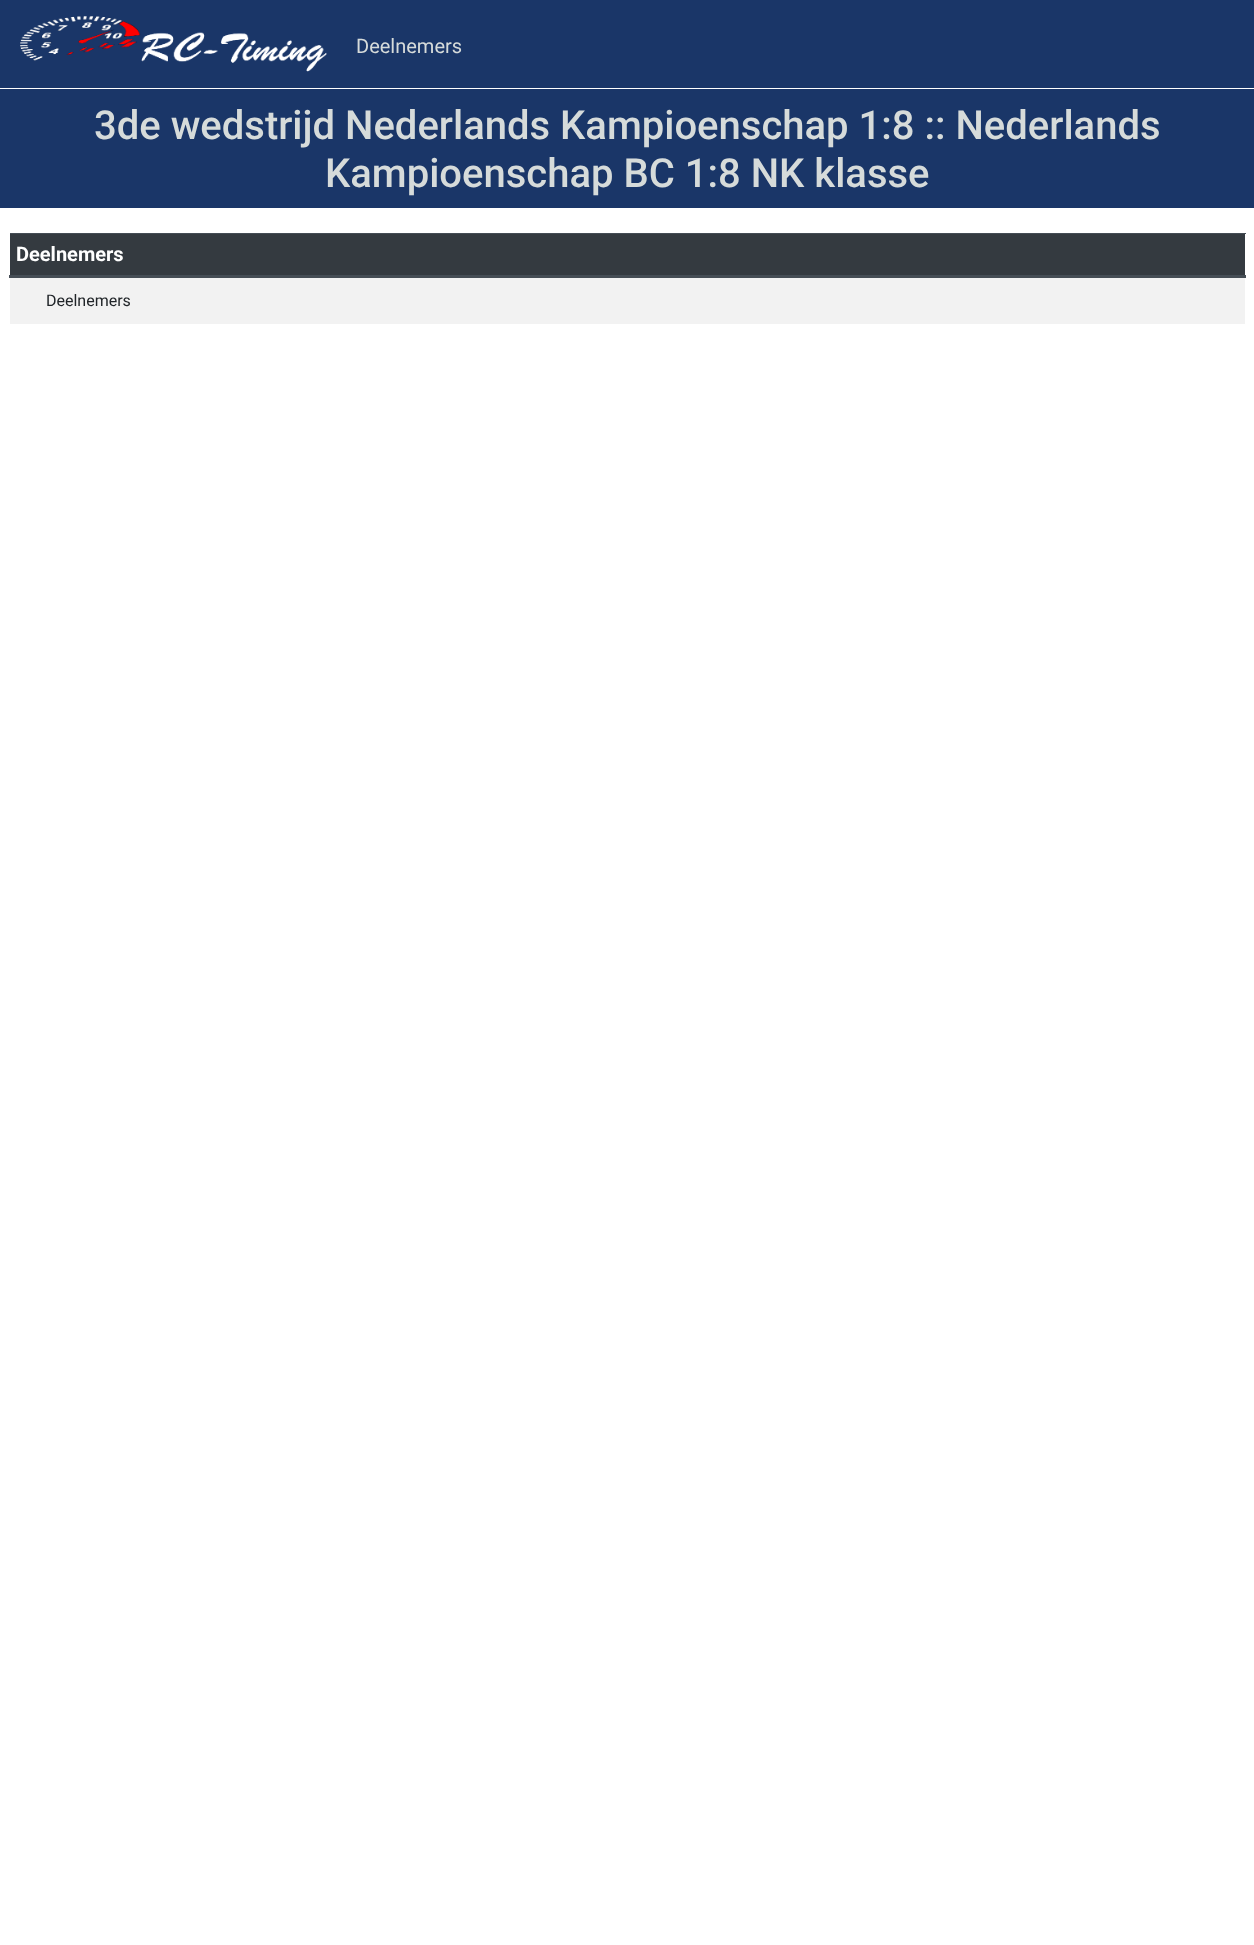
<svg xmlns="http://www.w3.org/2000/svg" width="1254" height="1945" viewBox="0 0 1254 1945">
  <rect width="100%" height="100%" fill="#ffffff"/>
  <rect x="0" y="0" width="1254" height="88" fill="#1a3668"/>
  <image x="20" y="16" width="307" height="56" href="img1.png"/>
  <text x="356" y="53" font-family="Roboto" font-size="20" fill="#d6dbda">Deelnemers</text>
  <rect x="0" y="89" width="1254" height="119" fill="#1a3668"/>
  <text x="94" y="139" font-family="Roboto" font-size="40" font-weight="500" fill="#d6dbda">3de wedstrijd Nederlands Kampioenschap 1:8 :: Nederlands</text>
  <text x="325" y="187" font-family="Roboto" font-size="40" font-weight="500" fill="#d6dbda">Kampioenschap BC 1:8 NK klasse</text>
  <rect x="10" y="234" width="1235" height="41" fill="#343a40"/>
  <rect x="10" y="233" width="1236" height="1" fill="#454d55"/>
  <rect x="9" y="275" width="1237" height="3" fill="#454d55"/>
  <text x="16" y="261" font-family="Roboto" font-size="20" font-weight="bold" fill="#ffffff">Deelnemers</text>
  <rect x="10" y="278" width="1235" height="46" fill="#f2f2f2"/>
  <text x="46" y="306" font-family="Roboto" font-size="16" fill="#212529">Deelnemers</text>
</svg>
